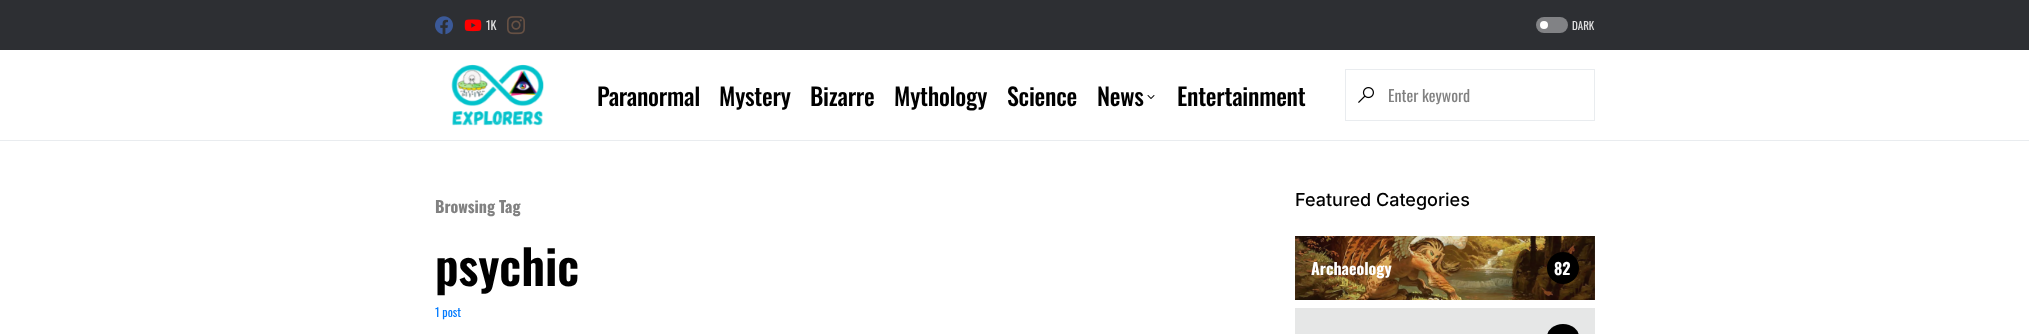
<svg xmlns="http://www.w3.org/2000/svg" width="2029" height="334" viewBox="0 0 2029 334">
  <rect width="100%" height="100%" fill="#ffffff"/>
  <rect x="0" y="0" width="2029" height="50" fill="#2d2f33"/>
  <image x="435" y="16" width="18" height="19" href="img1.png"/>
  <image x="464" y="19" width="18" height="13" href="img2.png"/>
  <text x="486" y="30" font-family="Oswald" font-size="12" fill="#e0e0e0">1K</text>
  <image x="507" y="16" width="18" height="19" href="img3.png"/>
  <rect x="1536" y="17" width="32" height="16" rx="8" fill="#818285"/>
  <circle cx="1544" cy="25" r="4" fill="#ffffff"/>
  <text x="1572" y="30" font-family="Oswald" font-size="11" fill="#e0e0e0">DARK</text>
  <rect x="0" y="140" width="2029" height="1" fill="#e9ecef"/>
  <image x="451" y="64" width="93" height="62" href="img4.png"/>
  <text x="597" y="106" font-family="Oswald" font-size="24" font-weight="500" letter-spacing="-0.25" fill="#000000">Paranormal</text>
  <text x="719" y="106" font-family="Oswald" font-size="24" font-weight="500" letter-spacing="-0.25" fill="#000000">Mystery</text>
  <text x="810" y="106" font-family="Oswald" font-size="24" font-weight="500" letter-spacing="-0.25" fill="#000000">Bizarre</text>
  <text x="894" y="106" font-family="Oswald" font-size="24" font-weight="500" letter-spacing="-0.25" fill="#000000">Mythology</text>
  <text x="1007" y="106" font-family="Oswald" font-size="24" font-weight="500" letter-spacing="-0.25" fill="#000000">Science</text>
  <text x="1097" y="106" font-family="Oswald" font-size="24" font-weight="500" letter-spacing="-0.25" fill="#000000">News</text>
  <image x="1147" y="95" width="8" height="4" href="img5.png"/>
  <text x="1177" y="106" font-family="Oswald" font-size="24" font-weight="500" letter-spacing="-0.25" fill="#000000">Entertainment</text>
  <rect x="1345.5" y="69.5" width="249" height="51" fill="none" stroke="#e9ecef"/>
  <image x="1358" y="87" width="16" height="16" href="img6.png"/>
  <text x="1388" y="102" font-family="Oswald" font-size="16" fill="#818181">Enter keyword</text>
  <text x="435" y="213" font-family="Oswald" font-size="16" font-weight="bold" fill="#818181">Browsing Tag</text>
  <text x="435" y="286" font-family="Oswald" font-size="48" font-weight="600" fill="#000000">psychic</text>
  <text x="435" y="317" font-family="Oswald" font-size="12" fill="#007aff">1 post</text>
  <text x="1295" y="206" font-family="Inter" font-size="18" font-weight="500" fill="#000000">Featured Categories</text>
  <image x="1295" y="236" width="300" height="64" href="img7.png"/>
  <text x="1311" y="275" font-family="Oswald" font-size="16" font-weight="bold" fill="#ffffff">Archaeology</text>
  <circle cx="1563" cy="268" r="16" fill="#000000"/>
  <text x="1554" y="275" font-family="Oswald" font-size="16" font-weight="bold" fill="#ffffff">82</text>
  <rect x="1295" y="308" width="300" height="26" fill="#e6e7e7"/>
  <rect x="1547" y="324" width="32" height="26" rx="16" fill="#000000"/>
</svg>
